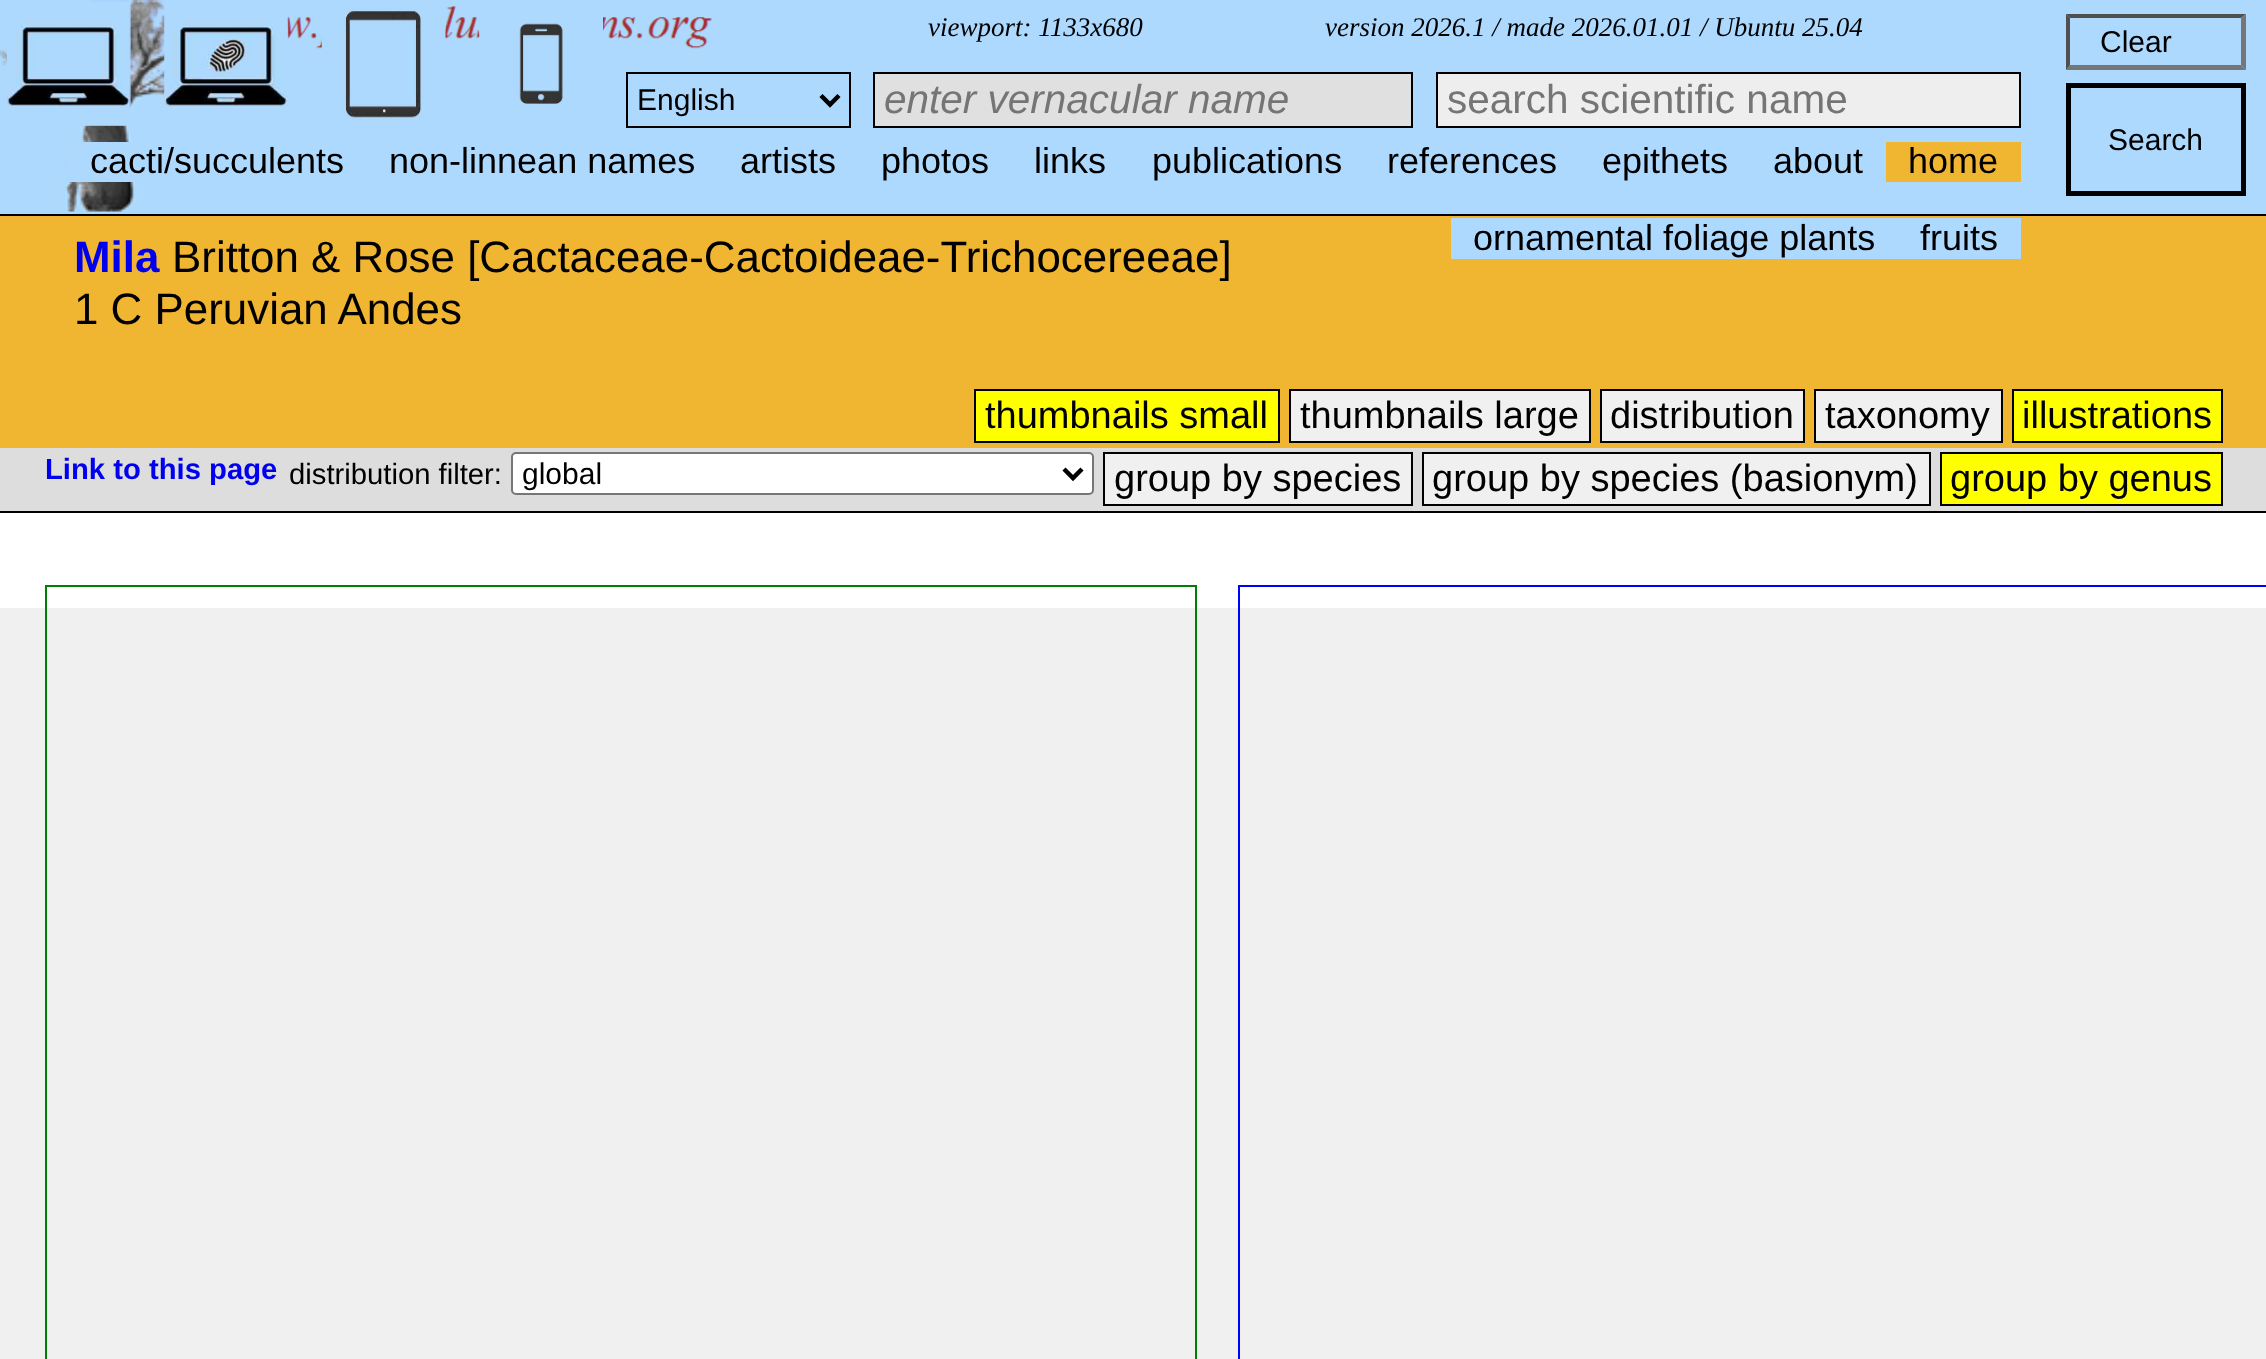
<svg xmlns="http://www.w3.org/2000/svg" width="2266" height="1359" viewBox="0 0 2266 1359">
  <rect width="100%" height="100%" fill="#ffffff"/>
  <rect x="0" y="0" width="2266" height="214" fill="#add9fe"/>
  <rect x="0" y="214" width="2266" height="2" fill="#000000"/>
  <image x="0" y="0" width="225" height="212" href="img1.png"/>
  <image x="7" y="2" width="124" height="124" href="img2.png"/>
  <image x="287" y="6" width="425" height="43" href="img6.png"/>
  <image x="164" y="5" width="125" height="102" href="img3.png"/>
  <image x="321" y="6" width="125" height="115" href="img4.png"/>
  <image x="479" y="9" width="124" height="96" href="img5.png"/>
  <text x="928" y="36" font-family="Liberation Serif" font-size="27" font-style="italic" fill="#000000">viewport: 1133x680</text>
  <text x="1325" y="36" font-family="Liberation Serif" font-size="27" font-style="italic" fill="#000000">version 2026.1 / made 2026.01.01 / Ubuntu 25.04</text>
  <path d="M2066 14H2246L2241 18H2070Z" fill="#4f4f4f"/>
  <path d="M2246 14V70L2241 65V18Z" fill="#767676"/>
  <path d="M2246 70H2066L2070 65H2241Z" fill="#767676"/>
  <path d="M2066 70V14L2070 18V65Z" fill="#4f4f4f"/>
  <text x="2100" y="52" font-family="Liberation Sans" font-size="30" fill="#000000">Clear</text>
  <rect x="627" y="73" width="223" height="54" fill="none" stroke="#000000" stroke-width="2"/>
  <path d="M821 95.5L830 104.5L839 95.5" fill="none" stroke="#000000" stroke-width="4.5"/>
  <text x="637" y="110" font-family="Liberation Sans" font-size="30" fill="#000000">English</text>
  <rect x="874" y="73" width="538" height="54" fill="#e0e0e0" stroke="#000000" stroke-width="2"/>
  <text x="884" y="113" font-family="Liberation Sans" font-size="40.5" font-style="italic" fill="#757575">enter vernacular name</text>
  <rect x="1437" y="73" width="583" height="54" fill="#eeeeee" stroke="#000000" stroke-width="2"/>
  <text x="1447" y="113" font-family="Liberation Sans" font-size="40.5" fill="#757575">search scientific name</text>
  <rect x="2068.5" y="85.5" width="175" height="108" fill="none" stroke="#000000" stroke-width="5"/>
  <text x="2108" y="150" font-family="Liberation Sans" font-size="30" fill="#000000">Search</text>
  <rect x="68" y="142" width="68" height="40" fill="#add9fe"/>
  <text x="90" y="173" font-family="Liberation Sans" font-size="36" fill="#000000">cacti/succulents</text>
  <text x="389" y="173" font-family="Liberation Sans" font-size="36" fill="#000000">non-linnean names</text>
  <text x="740" y="173" font-family="Liberation Sans" font-size="36" fill="#000000">artists</text>
  <text x="881" y="173" font-family="Liberation Sans" font-size="36" fill="#000000">photos</text>
  <text x="1034" y="173" font-family="Liberation Sans" font-size="36" fill="#000000">links</text>
  <text x="1152" y="173" font-family="Liberation Sans" font-size="36" fill="#000000">publications</text>
  <text x="1387" y="173" font-family="Liberation Sans" font-size="36" fill="#000000">references</text>
  <text x="1602" y="173" font-family="Liberation Sans" font-size="36" fill="#000000">epithets</text>
  <text x="1773" y="173" font-family="Liberation Sans" font-size="36" fill="#000000">about</text>
  <rect x="1886" y="142" width="135" height="40" fill="#f0b531"/>
  <text x="1908" y="173" font-family="Liberation Sans" font-size="36" fill="#000000">home</text>
  <rect x="0" y="216" width="2266" height="232" fill="#f0b531"/>
  <rect x="1451" y="218" width="570" height="41" fill="#add9fe"/>
  <text x="1473" y="250" font-family="Liberation Sans" font-size="36" fill="#000000">ornamental foliage plants</text>
  <text x="1920" y="250" font-family="Liberation Sans" font-size="36" fill="#000000">fruits</text>
  <text x="74" y="272" font-family="Liberation Sans" font-size="43.9" font-weight="bold" fill="#0000ee">Mila</text>
  <text x="172" y="272" font-family="Liberation Sans" font-size="43.9" fill="#000000">Britton &amp; Rose [Cactaceae-Cactoideae-Trichocereeae]</text>
  <text x="74" y="324" font-family="Liberation Sans" font-size="43.9" fill="#000000">1 C Peruvian Andes</text>
  <rect x="975" y="390" width="304" height="52" fill="#ffff00" stroke="#000000" stroke-width="2"/>
  <text x="985" y="428" font-family="Liberation Sans" font-size="38" fill="#000000">thumbnails small</text>
  <rect x="1290" y="390" width="300" height="52" fill="#f0f0f0" stroke="#000000" stroke-width="2"/>
  <text x="1300" y="428" font-family="Liberation Sans" font-size="38" fill="#000000">thumbnails large</text>
  <rect x="1601" y="390" width="203" height="52" fill="#f0f0f0" stroke="#000000" stroke-width="2"/>
  <text x="1610" y="428" font-family="Liberation Sans" font-size="38" fill="#000000">distribution</text>
  <rect x="1815" y="390" width="187" height="52" fill="#f0f0f0" stroke="#000000" stroke-width="2"/>
  <text x="1825" y="428" font-family="Liberation Sans" font-size="38" fill="#000000">taxonomy</text>
  <rect x="2013" y="390" width="209" height="52" fill="#ffff00" stroke="#000000" stroke-width="2"/>
  <text x="2022" y="428" font-family="Liberation Sans" font-size="38" fill="#000000">illustrations</text>
  <rect x="0" y="448" width="2266" height="63" fill="#dddddd"/>
  <rect x="0" y="511" width="2266" height="2" fill="#000000"/>
  <text x="45" y="479" font-family="Liberation Sans" font-size="29.25" font-weight="bold" fill="#0000ee">Link to this page</text>
  <text x="289" y="484" font-family="Liberation Sans" font-size="29.25" fill="#000000">distribution filter:</text>
  <rect x="512" y="453" width="581" height="41" rx="4" fill="#ffffff" stroke="#767676" stroke-width="2"/>
  <path d="M1064 469L1073 478L1082 469" fill="none" stroke="#000000" stroke-width="4.5"/>
  <text x="522" y="484" font-family="Liberation Sans" font-size="30" fill="#000000">global</text>
  <rect x="1104" y="453" width="308" height="52" fill="#f0f0f0" stroke="#000000" stroke-width="2"/>
  <text x="1114" y="491" font-family="Liberation Sans" font-size="38" fill="#000000">group by species</text>
  <rect x="1423" y="453" width="507" height="52" fill="#f0f0f0" stroke="#000000" stroke-width="2"/>
  <text x="1432" y="491" font-family="Liberation Sans" font-size="38" fill="#000000">group by species (basionym)</text>
  <rect x="1941" y="453" width="281" height="52" fill="#ffff00" stroke="#000000" stroke-width="2"/>
  <text x="1950" y="491" font-family="Liberation Sans" font-size="38" fill="#000000">group by genus</text>
  <rect x="0" y="608" width="2266" height="751" fill="#f0f0f0"/>
  <rect x="46" y="586" width="1150" height="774" fill="none" stroke="#008000" stroke-width="2"/>
  <rect x="1239" y="586" width="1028" height="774" fill="none" stroke="#0000ff" stroke-width="2"/>
</svg>
